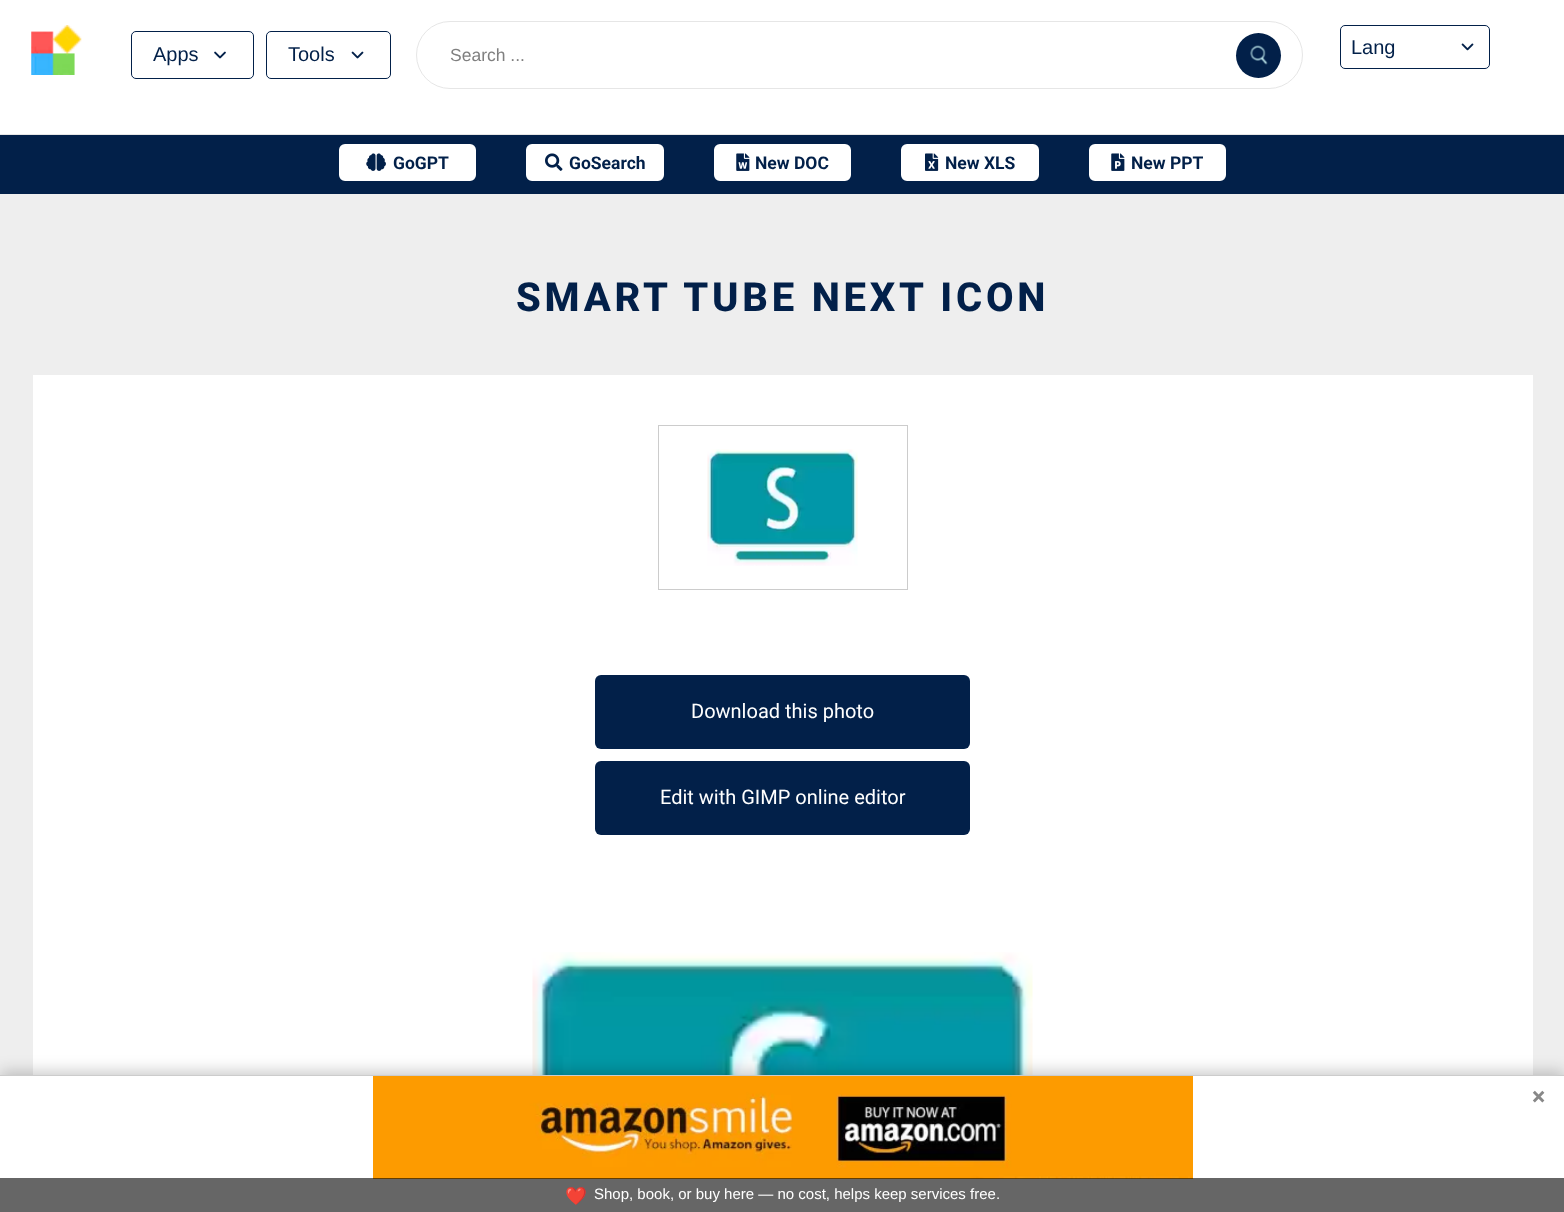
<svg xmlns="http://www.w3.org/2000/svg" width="1564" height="1212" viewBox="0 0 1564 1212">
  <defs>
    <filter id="blur1" x="-50%" y="-200%" width="200%" height="500%"><feGaussianBlur stdDeviation="7.5"/></filter>
  </defs>
  <rect width="100%" height="100%" fill="#eeeeee"/>
  <rect x="0" y="0" width="1564" height="134" fill="#ffffff"/>
  <rect x="0" y="134" width="1564" height="1" fill="#e6e6e6"/>
  <image x="31" y="25" width="51" height="50" href="img1.png"/>
  <rect x="131.5" y="31.5" width="122" height="47" rx="4.5" fill="none" stroke="#022049"/>
  <text x="153" y="61" font-family="Liberation Sans" font-size="20" fill="#022049">Apps</text>
  <image x="214" y="51" width="12" height="8" href="img2.png"/>
  <rect x="266.5" y="31.5" width="124" height="47" rx="4.5" fill="none" stroke="#022049"/>
  <text x="288" y="61" font-family="Liberation Sans" font-size="20" fill="#022049">Tools</text>
  <image x="351" y="51" width="13" height="8" href="img3.png"/>
  <rect x="416.5" y="21.5" width="886" height="67" rx="33.5" fill="none" stroke="#e6e6e6"/>
  <text x="450" y="61" font-family="Liberation Sans" font-size="17.5" fill="#808080">Search ...</text>
  <circle cx="1258.5" cy="55.5" r="22.5" fill="#022049"/>
  <image x="1250" y="45" width="18" height="20" href="img4.png"/>
  <rect x="1340.5" y="25.5" width="149" height="43" rx="4.5" fill="none" stroke="#022049"/>
  <text x="1351" y="54" font-family="Liberation Sans" font-size="20" fill="#022049">Lang</text>
  <image x="1461" y="43" width="13" height="8" href="img5.png"/>
  <rect x="0" y="135" width="1564" height="59" fill="#022049"/>
  <rect x="340.5" y="145.5" width="134" height="34" rx="4.5" fill="#ffffff" stroke="#ffffff" stroke-width="3"/>
  <image x="366" y="153" width="20" height="18" href="img6.png"/>
  <text x="393" y="169" font-family="Roboto" font-size="17.5" font-weight="bold" fill="#022049">GoGPT</text>
  <rect x="527.5" y="145.5" width="135" height="34" rx="4.5" fill="#ffffff" stroke="#ffffff" stroke-width="3"/>
  <image x="545" y="153" width="18" height="18" href="img7.png"/>
  <text x="569" y="169" font-family="Roboto" font-size="17.5" font-weight="bold" fill="#022049">GoSearch</text>
  <rect x="715.5" y="145.5" width="134" height="34" rx="4.5" fill="#ffffff" stroke="#ffffff" stroke-width="3"/>
  <image x="736" y="153" width="14" height="18" href="img8.png"/>
  <text x="755" y="169" font-family="Roboto" font-size="17.5" font-weight="bold" fill="#022049">New DOC</text>
  <rect x="902.5" y="145.5" width="135" height="34" rx="4.5" fill="#ffffff" stroke="#ffffff" stroke-width="3"/>
  <image x="925" y="153" width="14" height="18" href="img9.png"/>
  <text x="945" y="169" font-family="Roboto" font-size="17.5" font-weight="bold" fill="#022049">New XLS</text>
  <rect x="1090.5" y="145.5" width="134" height="34" rx="4.5" fill="#ffffff" stroke="#ffffff" stroke-width="3"/>
  <image x="1111" y="153" width="14" height="18" href="img10.png"/>
  <text x="1131" y="169" font-family="Roboto" font-size="17.5" font-weight="bold" fill="#022049">New PPT</text>
  <text x="516" y="311" font-family="Roboto" font-size="40" font-weight="800" letter-spacing="3.75" fill="#022049">SMART TUBE NEXT ICON</text>
  <rect x="33" y="375" width="1500" height="700" fill="#ffffff"/>
  <rect x="658.5" y="425.5" width="249" height="164" fill="none" stroke="#cccccc"/>
  <image x="707" y="449" width="151" height="117" href="img11.png"/>
  <rect x="595" y="675" width="375" height="74" rx="6" fill="#022049"/>
  <text x="691" y="718" font-family="Roboto" font-size="20" fill="#ffffff">Download this photo</text>
  <rect x="595" y="761" width="375" height="74" rx="6" fill="#022049"/>
  <text x="660" y="804" font-family="Roboto" font-size="20" fill="#ffffff">Edit with GIMP online editor</text>
  <image x="532" y="952" width="501" height="123" href="img12.png"/>
  <rect x="0" y="1071" width="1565" height="138" fill="#000000" fill-opacity="0.2" filter="url(#blur1)"/>
  <rect x="0" y="1076" width="1564" height="136" fill="#ffffff"/>
  <rect x="0" y="1075" width="1564" height="1" fill="#cccccc"/>
  <text x="1532" y="1105" font-family="Roboto" font-size="25" font-weight="bold" fill="#888888">×</text>
  <image x="373" y="1076" width="820" height="103" href="img13.png"/>
  <rect x="0" y="1178" width="1564" height="34" fill="#000000" fill-opacity="0.6"/>
  <text x="565" y="1202" font-family="Noto Color Emoji" font-size="17.5" fill="#ffffff">❤️</text>
  <text x="594" y="1199" font-family="Liberation Sans" font-size="15" fill="#ffffff">Shop, book, or buy here — no cost, helps keep services free.</text>
</svg>
